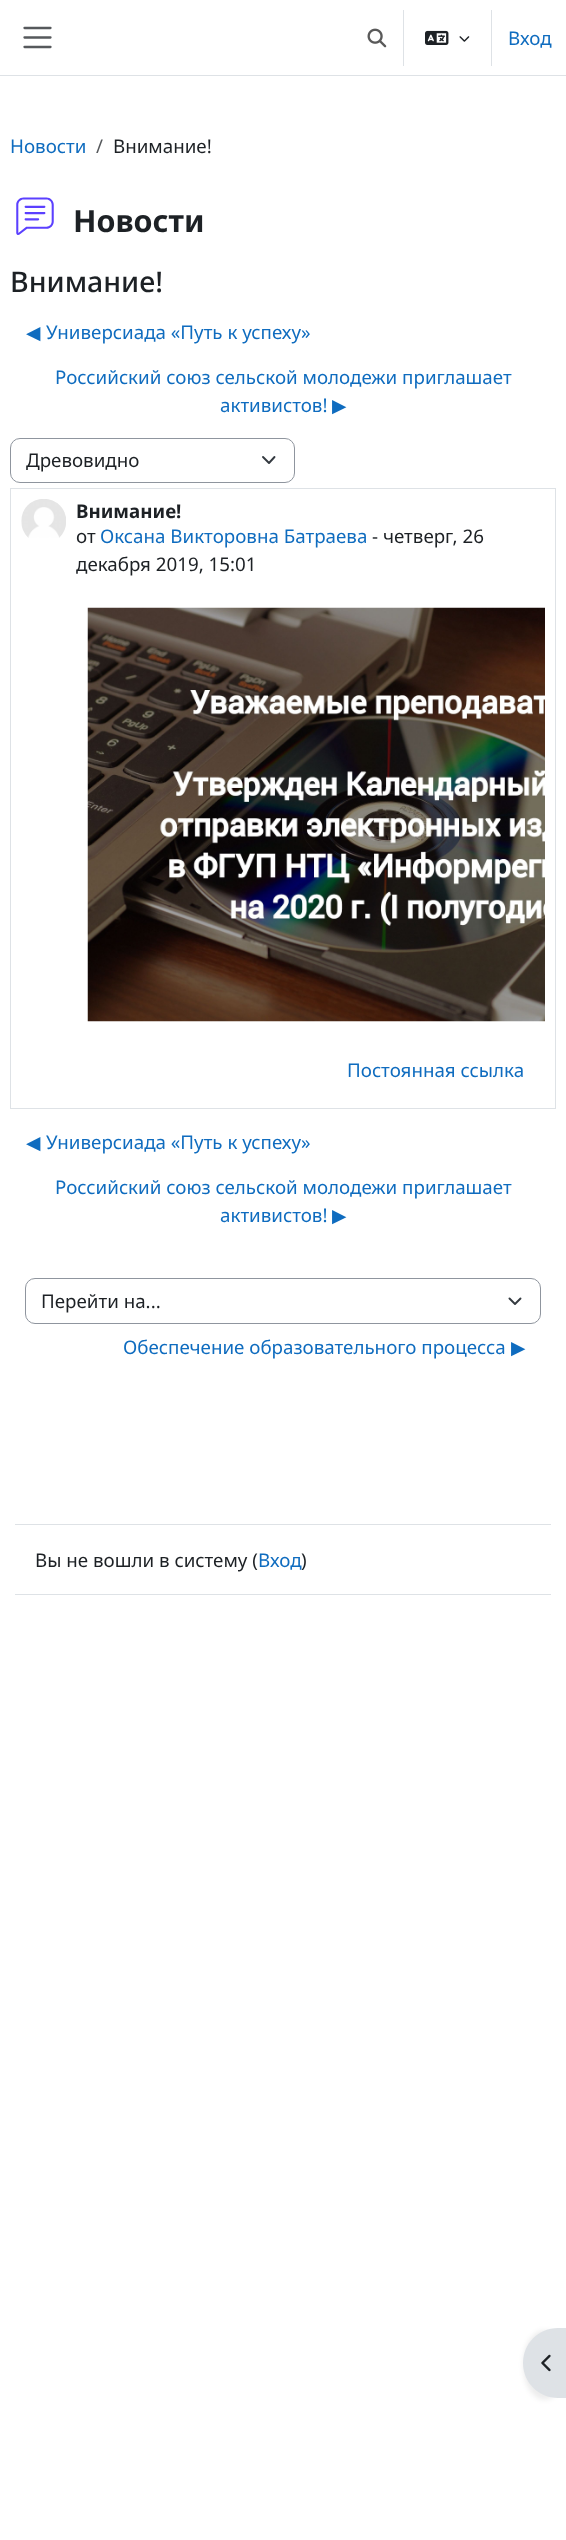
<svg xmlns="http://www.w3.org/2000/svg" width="566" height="2540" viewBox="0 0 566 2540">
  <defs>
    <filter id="blur1" x="-50%" y="-200%" width="200%" height="500%"><feGaussianBlur stdDeviation="2.5"/></filter>
  </defs>
  <rect width="100%" height="100%" fill="#ffffff"/>
  <rect x="0" y="75" width="566" height="1" fill="#dee2e6"/>
  <path d="M24.5 28H50.5M24.5 37.5H50.5M24.5 47H50.5" fill="none" stroke="#56595c" stroke-width="2.3" stroke-linecap="round"/>
  <image x="367" y="28" width="20" height="20" href="img1.png"/>
  <rect x="403" y="10" width="1" height="56" fill="#dee2e6"/>
  <image x="425" y="30" width="24" height="15" href="img2.png"/>
  <image x="459" y="36" width="11" height="6" href="img3.png"/>
  <rect x="491" y="10" width="1" height="56" fill="#dee2e6"/>
  <text x="508" y="45" font-family="Noto Sans" font-size="18.75" fill="#0f6cbf">Вход</text>
  <text x="10" y="153" font-family="Noto Sans" font-size="18.75" fill="#0f6cbf">Новости</text>
  <text x="96" y="153" font-family="Noto Sans" font-size="18.75" fill="#56595c">/</text>
  <text x="113" y="153" font-family="Noto Sans" font-size="18.75" fill="#1d2125">Внимание!</text>
  <image x="16" y="197" width="38" height="38" href="img4.png"/>
  <text x="73" y="232" font-family="Noto Sans" font-size="30.5" font-weight="bold" fill="#1d2125">Новости</text>
  <text x="10" y="292" font-family="Noto Sans" font-size="28.5" font-weight="500" fill="#1d2125">Внимание!</text>
  <text x="26" y="339" font-family="DejaVu Sans" font-size="18.75" fill="#0f6cbf">◀︎</text>
  <text x="46" y="339" font-family="Noto Sans" font-size="18.75" fill="#0f6cbf">Универсиада «Путь к успеху»</text>
  <text x="55" y="384" font-family="Noto Sans" font-size="18.75" fill="#0f6cbf">Российский союз сельской молодежи приглашает</text>
  <text x="220" y="412" font-family="Noto Sans" font-size="18.75" fill="#0f6cbf">активистов!</text>
  <text x="332" y="412" font-family="DejaVu Sans" font-size="18.75" fill="#0f6cbf">▶︎</text>
  <path d="M263 457L269 463L274.5 457" fill="none" stroke="#343a40" stroke-width="1.9" stroke-linecap="round" stroke-linejoin="round"/>
  <rect x="10.5" y="438.5" width="284" height="44" rx="9.5" fill="none" stroke="#8f959e"/>
  <text x="26" y="467" font-family="Noto Sans" font-size="18.75" fill="#1d2125">Древовидно</text>
  <rect x="10.5" y="488.5" width="545" height="620" fill="none" stroke="#dee2e6"/>
  <image x="21" y="499" width="45" height="39" href="img5.png"/>
  <text x="76" y="518" font-family="Noto Sans" font-size="18.75" font-weight="bold" fill="#1d2125">Внимание!</text>
  <text x="76" y="543" font-family="Noto Sans" font-size="18.75" fill="#1d2125">от</text>
  <text x="100" y="543" font-family="Noto Sans" font-size="18.75" fill="#0f6cbf">Оксана Викторовна Батраева</text>
  <text x="372" y="543" font-family="Noto Sans" font-size="18.75" fill="#1d2125">- четверг, 26</text>
  <text x="76" y="571" font-family="Noto Sans" font-size="18.75" fill="#1d2125">декабря 2019, 15:01</text>
  <image x="87" y="607" width="458" height="415" href="img6.png"/>
  <text x="347" y="1077" font-family="Noto Sans" font-size="18.75" fill="#0f6cbf">Постоянная ссылка</text>
  <text x="26" y="1149" font-family="DejaVu Sans" font-size="18.75" fill="#0f6cbf">◀︎</text>
  <text x="46" y="1149" font-family="Noto Sans" font-size="18.75" fill="#0f6cbf">Универсиада «Путь к успеху»</text>
  <text x="55" y="1194" font-family="Noto Sans" font-size="18.75" fill="#0f6cbf">Российский союз сельской молодежи приглашает</text>
  <text x="220" y="1222" font-family="Noto Sans" font-size="18.75" fill="#0f6cbf">активистов!</text>
  <text x="332" y="1222" font-family="DejaVu Sans" font-size="18.75" fill="#0f6cbf">▶︎</text>
  <path d="M509.5 1298.5L515 1304L520.5 1298.5" fill="none" stroke="#343a40" stroke-width="1.9" stroke-linecap="round" stroke-linejoin="round"/>
  <rect x="25.5" y="1278.5" width="515" height="45" rx="9.5" fill="none" stroke="#8f959e"/>
  <text x="41" y="1308" font-family="Noto Sans" font-size="18.75" fill="#1d2125">Перейти на...</text>
  <text x="123" y="1354" font-family="Noto Sans" font-size="18.75" fill="#0f6cbf">Обеспечение образовательного процесса</text>
  <text x="511" y="1354" font-family="DejaVu Sans" font-size="18.75" fill="#0f6cbf">▶︎</text>
  <rect x="523" y="2330" width="43" height="70" rx="35" fill="#000000" fill-opacity="0.07" filter="url(#blur1)"/>
  <path d="M558 2328H566V2398H558C538.5 2398 523 2382.5 523 2363C523 2343.5 538.5 2328 558 2328Z" fill="#dee2e6"/>
  <image x="541" y="2354" width="10" height="18" href="img7.png"/>
  <rect x="15" y="1524" width="536" height="1" fill="#dee2e6"/>
  <rect x="15" y="1594" width="536" height="1" fill="#dee2e6"/>
  <text x="35" y="1567" font-family="Noto Sans" font-size="18.75" fill="#1d2125">Вы не вошли в систему (</text>
  <text x="258" y="1567" font-family="Noto Sans" font-size="18.75" fill="#0f6cbf">Вход</text>
  <text x="301" y="1567" font-family="Noto Sans" font-size="18.75" fill="#1d2125">)</text>
</svg>
